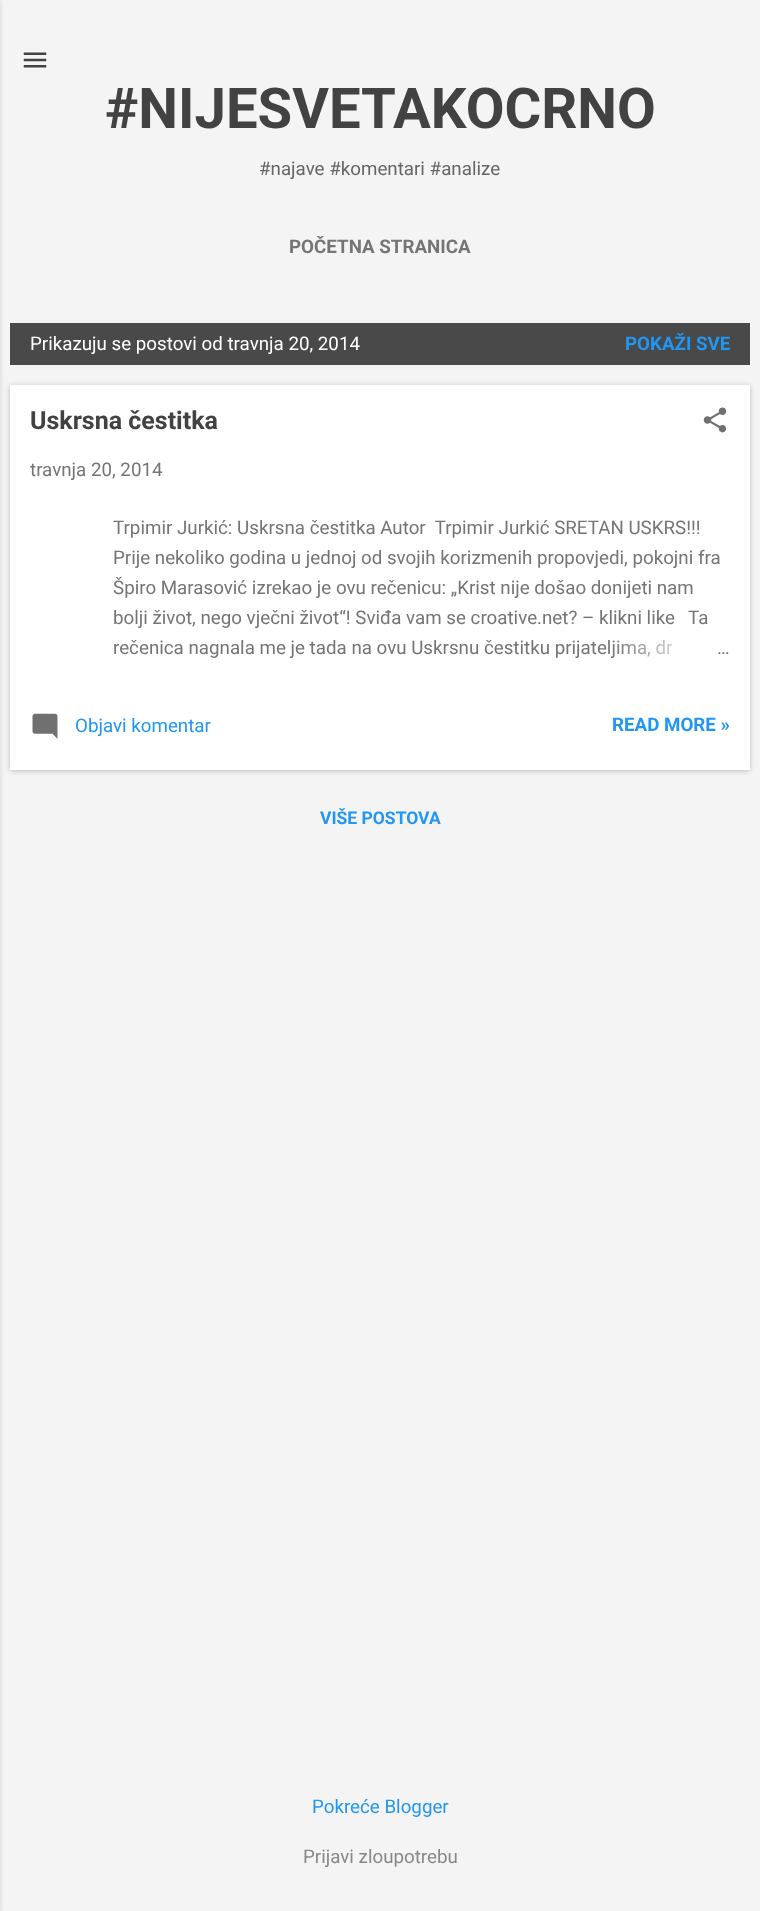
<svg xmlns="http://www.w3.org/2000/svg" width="760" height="1911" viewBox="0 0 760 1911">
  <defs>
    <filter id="blur1" x="-50%" y="-200%" width="200%" height="500%"><feGaussianBlur stdDeviation="2"/></filter>
    <filter id="blur2" x="-50%" y="-200%" width="200%" height="500%"><feGaussianBlur stdDeviation="2.5"/></filter>
    <linearGradient id="g1" gradientUnits="userSpaceOnUse" x1="730" y1="649" x2="610" y2="649"><stop offset="0" stop-color="#ffffff"/><stop offset="0.2" stop-color="#ffffff"/><stop offset="1" stop-color="#ffffff" stop-opacity="0"/></linearGradient>
  </defs>
  <rect width="100%" height="100%" fill="#f4f4f4"/>
  <rect x="-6" y="1" width="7" height="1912" fill="#000000" fill-opacity="0.1" filter="url(#blur1)"/>
  <image x="23" y="52" width="24" height="16" href="img1.png"/>
  <text x="105" y="128" font-family="Roboto" font-size="56.25" font-weight="bold" fill="#424242">#NIJESVETAKOCRNO</text>
  <text x="259" y="175" font-family="Roboto" font-size="18.75" fill="#666666">#najave #komentari #analize</text>
  <text x="289" y="253" font-family="Roboto" font-size="18.75" font-weight="bold" fill="#757575">POČETNA STRANICA</text>
  <rect x="10" y="323" width="740" height="42" fill="#494949"/>
  <text x="30" y="350" font-family="Roboto" font-size="18.75" fill="#ffffff">Prikazuju se postovi od travnja 20, 2014</text>
  <text x="625" y="350" font-family="Roboto" font-size="18.75" font-weight="bold" fill="#2196f3">POKAŽI SVE</text>
  <rect x="10" y="386" width="740" height="385" fill="#3c4043" fill-opacity="0.3" filter="url(#blur2)"/>
  <rect x="10" y="385" width="740" height="385" fill="#ffffff"/>
  <text x="30" y="429" font-family="Roboto" font-size="25" font-weight="bold" fill="#424242">Uskrsna čestitka</text>
  <image x="703" y="407" width="24" height="26" href="img2.png"/>
  <text x="30" y="476" font-family="Roboto" font-size="18.75" fill="#757575">travnja 20, 2014</text>
  <text x="113" y="534" font-family="Roboto" font-size="18.75" fill="#757575" xml:space="preserve">Trpimir Jurkić: Uskrsna čestitka Autor  Trpimir Jurkić SRETAN USKRS!!!</text>
  <text x="113" y="564" font-family="Roboto" font-size="18.75" fill="#757575">Prije nekoliko godina u jednoj od svojih korizmenih propovjedi, pokojni fra</text>
  <text x="113" y="594" font-family="Roboto" font-size="18.75" fill="#757575">Špiro Marasović izrekao je ovu rečenicu: „Krist nije došao donijeti nam</text>
  <text x="113" y="624" font-family="Roboto" font-size="18.75" fill="#757575">bolji život, nego vječni život“! Sviđa vam se croative.net? – klikni like</text>
  <text x="688" y="624" font-family="Roboto" font-size="18.75" fill="#757575">Ta</text>
  <text x="113" y="654" font-family="Roboto" font-size="18.75" fill="#757575">rečenica nagnala me je tada na ovu Uskrsnu čestitku prijateljima, dr</text>
  <rect x="612" y="639" width="60" height="19" fill="url(#g1)"/>
  <text x="717" y="654" font-family="Roboto" font-size="18.75" fill="#757575">…</text>
  <image x="32" y="713" width="26" height="26" href="img3.png"/>
  <text x="75" y="732" font-family="Roboto" font-size="18.75" fill="#2196f3">Objavi komentar</text>
  <text x="612" y="731" font-family="Roboto" font-size="18.75" font-weight="bold" fill="#2196f3">READ MORE »</text>
  <text x="320" y="824" font-family="Roboto" font-size="17.5" font-weight="bold" fill="#2196f3">VIŠE POSTOVA</text>
  <text x="312" y="1813" font-family="Roboto" font-size="18.75" fill="#2196f3">Pokreće Blogger</text>
  <text x="303" y="1863" font-family="Roboto" font-size="18.75" fill="#888888">Prijavi zloupotrebu</text>
</svg>
